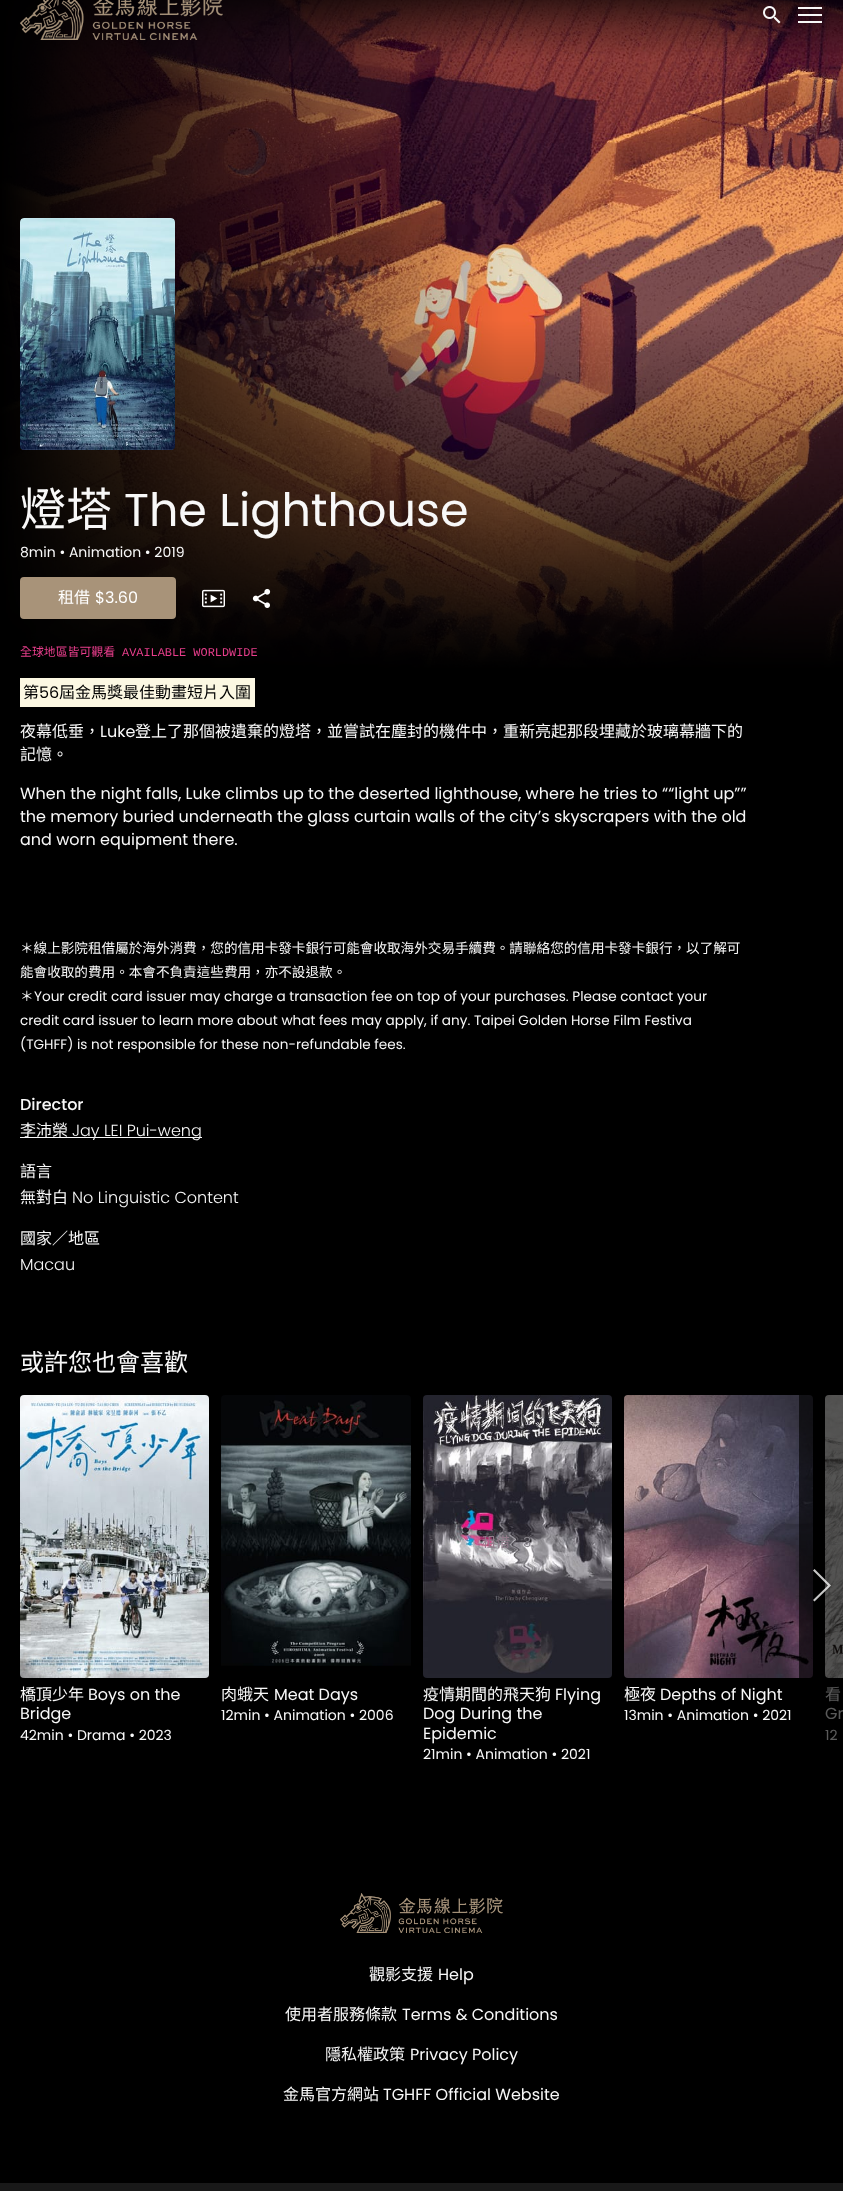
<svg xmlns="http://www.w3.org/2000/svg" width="843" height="2191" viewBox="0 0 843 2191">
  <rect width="100%" height="100%" fill="#000000"/>
  <image x="0" y="0" width="843" height="670" href="img3.png"/>
  <image x="20" y="0" width="203" height="40" href="img1.png"/>
  <image x="763" y="6" width="18" height="18" href="img2.png"/>
  <rect x="798" y="7" width="24" height="2" fill="#f8f8f8"/>
  <rect x="798" y="14" width="24" height="2" fill="#f8f8f8"/>
  <rect x="798" y="21" width="24" height="2" fill="#f8f8f8"/>
  <image x="20" y="218" width="155" height="232" href="img4.png"/>
  <text x="20" y="526" font-family="Noto Sans CJK TC" font-size="46" fill="#f8f8f8">燈塔</text>
  <text x="124" y="526" font-family="Poppins" font-size="46" fill="#f8f8f8">The Lighthouse</text>
  <text x="20" y="557" font-family="Poppins" font-size="14" fill="#f8f8f8">8min • Animation • 2019</text>
  <rect x="21.5" y="578.5" width="153" height="39" rx="2.5" fill="#a89379" stroke="#a89379" stroke-width="3"/>
  <text x="58" y="603" font-family="Noto Sans CJK TC" font-size="16" fill="#ffffff">租借</text>
  <text x="95" y="603" font-family="Poppins" font-size="16" fill="#ffffff">$3.60</text>
  <image x="202" y="589" width="23" height="19" href="img5.png"/>
  <image x="252" y="588" width="19" height="20" href="img6.png"/>
  <text x="20" y="656" font-family="Noto Sans CJK TC" font-size="11.9" fill="#e83e8c">全球地區皆可觀看</text>
  <text x="122" y="656" font-family="Liberation Mono" font-size="11.9" fill="#e83e8c">AVAILABLE WORLDWIDE</text>
  <rect x="20" y="678" width="235" height="29" fill="#fcf8e3"/>
  <text x="23" y="698" font-family="Noto Sans CJK TC" font-size="16" fill="#000000">第</text>
  <text x="39" y="698" font-family="Poppins" font-size="16" fill="#000000">56</text>
  <text x="59" y="698" font-family="Noto Sans CJK TC" font-size="16" fill="#000000">屆金馬獎最佳動畫短片入圍</text>
  <text x="20" y="737" font-family="Noto Sans CJK TC" font-size="16" fill="#f8f8f8">夜幕低垂，</text>
  <text x="100" y="737" font-family="Poppins" font-size="16" fill="#f8f8f8">Luke</text>
  <text x="135" y="737" font-family="Noto Sans CJK TC" font-size="16" fill="#f8f8f8">登上了那個被遺棄的燈塔，並嘗試在塵封的機件中，重新亮起那段埋藏於玻璃幕牆下的</text>
  <text x="20" y="760" font-family="Noto Sans CJK TC" font-size="16" fill="#f8f8f8">記憶。</text>
  <text x="20" y="799" font-family="Poppins" font-size="16" fill="#f8f8f8">When the night falls, Luke climbs up to the deserted lighthouse, where he tries to ““light up””</text>
  <text x="20" y="822" font-family="Poppins" font-size="16" fill="#f8f8f8">the memory buried underneath the glass curtain walls of the city’s skyscrapers with the old</text>
  <text x="20" y="845" font-family="Poppins" font-size="16" fill="#f8f8f8">and worn equipment there.</text>
  <text x="20" y="953" font-family="Noto Sans CJK TC" font-size="13.6" fill="#f8f8f8">＊線上影院租借屬於海外消費，您的信用卡發卡銀行可能會收取海外交易手續費。請聯絡您的信用卡發卡銀行，以了解可</text>
  <text x="20" y="977" font-family="Noto Sans CJK TC" font-size="13.6" fill="#f8f8f8">能會收取的費用。本會不負責這些費用，亦不設退款。</text>
  <text x="20" y="1001" font-family="Noto Sans CJK TC" font-size="13.6" fill="#f8f8f8">＊</text>
  <text x="34" y="1001" font-family="Poppins" font-size="13.6" fill="#f8f8f8">Your credit card issuer may charge a transaction fee on top of your purchases. Please contact your</text>
  <text x="20" y="1025" font-family="Poppins" font-size="13.6" fill="#f8f8f8">credit card issuer to learn more about what fees may apply, if any. Taipei Golden Horse Film Festiva</text>
  <text x="20" y="1049" font-family="Poppins" font-size="13.6" fill="#f8f8f8">(TGHFF) is not responsible for these non-refundable fees.</text>
  <text x="20" y="1110" font-family="Poppins" font-size="16" font-weight="500" fill="#f8f8f8">Director</text>
  <rect x="20" y="1137" width="182" height="1" fill="#f8f8f8"/>
  <text x="20" y="1136" font-family="Noto Sans CJK TC" font-size="16" fill="#f8f8f8">李沛榮</text>
  <text x="72" y="1136" font-family="Poppins" font-size="16" font-weight="300" fill="#f8f8f8">Jay LEI Pui-weng</text>
  <text x="20" y="1177" font-family="Noto Sans CJK TC" font-size="16" fill="#f8f8f8">語言</text>
  <text x="20" y="1203" font-family="Noto Sans CJK TC" font-size="16" fill="#f8f8f8">無對白</text>
  <text x="72" y="1203" font-family="Poppins" font-size="16" font-weight="300" fill="#f8f8f8">No Linguistic Content</text>
  <text x="20" y="1244" font-family="Noto Sans CJK TC" font-size="16" fill="#f8f8f8">國家／地區</text>
  <text x="20" y="1270" font-family="Poppins" font-size="16" font-weight="300" fill="#f8f8f8">Macau</text>
  <text x="20" y="1371" font-family="Noto Sans CJK TC" font-size="24" fill="#f8f8f8">或許您也會喜歡</text>
  <image x="20" y="1395" width="189" height="283" href="img7.png"/>
  <text x="80" y="1547" font-family="Noto Sans CJK TC" font-size="14" fill="#8a8e8c">租借</text>
  <text x="112" y="1547" font-family="Poppins" font-size="14" fill="#797e7f">$3.60</text>
  <text x="20" y="1700" font-family="Noto Sans CJK TC" font-size="16" fill="#f8f8f8">橋頂少年</text>
  <text x="88" y="1700" font-family="Poppins" font-size="16" fill="#f8f8f8">Boys on the</text>
  <text x="20" y="1719" font-family="Poppins" font-size="16" fill="#f8f8f8">Bridge</text>
  <text x="20" y="1740" font-family="Poppins" font-size="14" fill="#f8f8f8">42min • Drama • 2023</text>
  <image x="221" y="1395" width="190" height="271" href="img8.png"/>
  <text x="221" y="1700" font-family="Noto Sans CJK TC" font-size="16" fill="#f8f8f8">肉蛾天</text>
  <text x="274" y="1700" font-family="Poppins" font-size="16" fill="#f8f8f8">Meat Days</text>
  <text x="221" y="1720" font-family="Poppins" font-size="14" fill="#f8f8f8">12min • Animation • 2006</text>
  <image x="423" y="1395" width="189" height="283" href="img9.png"/>
  <text x="482" y="1547" font-family="Noto Sans CJK TC" font-size="14" fill="#937b8b">租借</text>
  <text x="523" y="1547" font-family="Poppins" font-size="14" fill="#89868c">3.</text>
  <text x="423" y="1700" font-family="Noto Sans CJK TC" font-size="16" fill="#f8f8f8">疫情期間的飛天狗</text>
  <text x="555" y="1700" font-family="Poppins" font-size="16" fill="#f8f8f8">Flying</text>
  <text x="423" y="1719" font-family="Poppins" font-size="16" fill="#f8f8f8">Dog During the</text>
  <text x="423" y="1739" font-family="Poppins" font-size="16" fill="#f8f8f8">Epidemic</text>
  <text x="423" y="1759" font-family="Poppins" font-size="14" fill="#f8f8f8">21min • Animation • 2021</text>
  <image x="624" y="1395" width="189" height="283" href="img10.png"/>
  <text x="624" y="1700" font-family="Noto Sans CJK TC" font-size="16" fill="#f8f8f8">極夜</text>
  <text x="660" y="1700" font-family="Poppins" font-size="16" fill="#f8f8f8">Depths of Night</text>
  <text x="624" y="1720" font-family="Poppins" font-size="14" fill="#f8f8f8">13min • Animation • 2021</text>
  <image x="825" y="1395" width="18" height="283" href="img11.png"/>
  <text x="825" y="1700" font-family="Noto Sans CJK TC" font-size="16" fill="#f8f8f8">看</text>
  <text x="825" y="1719" font-family="Poppins" font-size="16" fill="#f8f8f8">Gr</text>
  <text x="825" y="1740" font-family="Poppins" font-size="14" fill="#f8f8f8">12</text>
  <rect x="799" y="1395" width="44" height="345" fill="#000000" fill-opacity="0.64"/>
  <path d="M831 1585.5L814.5 1601.5L813 1600L828 1585.5L813 1570.5L814.5 1569Z" fill="#f8f8f8" fill-opacity="0.8"/>
  <image x="340" y="1893" width="163" height="40" href="img12.png"/>
  <text x="369" y="1980" font-family="Noto Sans CJK TC" font-size="16" fill="#f8f8f8">觀影支援</text>
  <text x="438" y="1980" font-family="Poppins" font-size="16" fill="#f8f8f8">Help</text>
  <text x="285" y="2020" font-family="Noto Sans CJK TC" font-size="16" fill="#f8f8f8">使用者服務條款</text>
  <text x="402" y="2020" font-family="Poppins" font-size="16" fill="#f8f8f8">Terms &amp; Conditions</text>
  <text x="325" y="2060" font-family="Noto Sans CJK TC" font-size="16" fill="#f8f8f8">隱私權政策</text>
  <text x="410" y="2060" font-family="Poppins" font-size="16" fill="#f8f8f8">Privacy Policy</text>
  <text x="283" y="2100" font-family="Noto Sans CJK TC" font-size="16" fill="#f8f8f8">金馬官方網站</text>
  <text x="383" y="2100" font-family="Poppins" font-size="16" fill="#f8f8f8">TGHFF Official Website</text>
  <rect x="0" y="2183" width="843" height="8" fill="#191919"/>
</svg>
